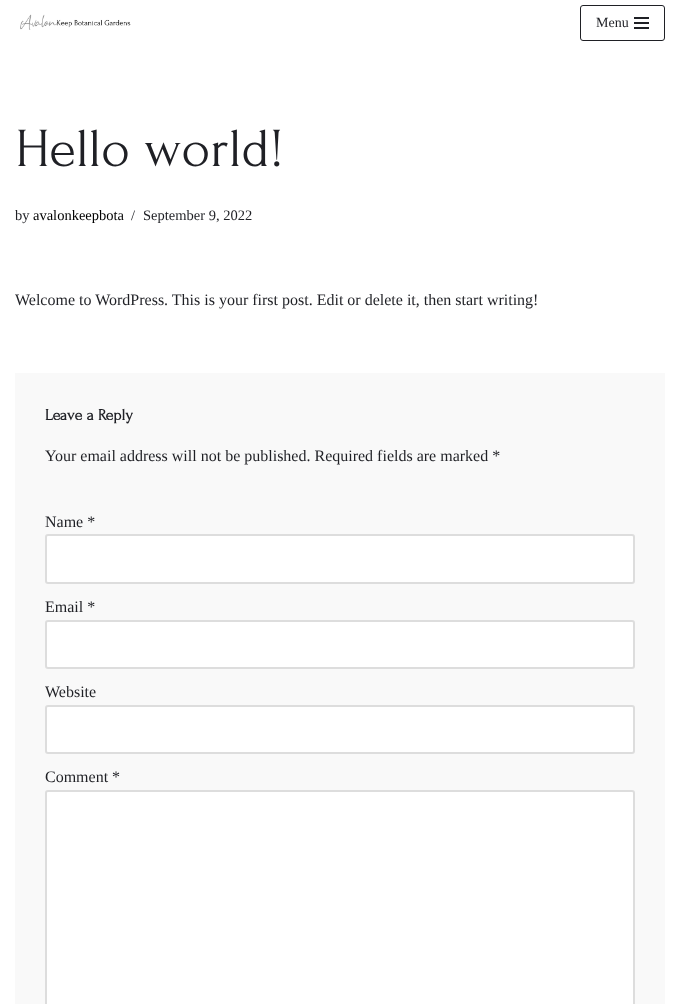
<svg xmlns="http://www.w3.org/2000/svg" width="680" height="1004" viewBox="0 0 680 1004">
  <rect width="100%" height="100%" fill="#ffffff"/>
  <image x="20" y="14" width="111" height="16" href="img1.png"/>
  <rect x="580.5" y="5.5" width="84" height="35" rx="2.5" fill="none" stroke="#1f2025"/>
  <text x="596" y="27" font-family="Liberation Serif" font-size="14" fill="#1f2025">Menu</text>
  <rect x="634" y="17" width="15" height="2" fill="#1f2025"/>
  <rect x="634" y="22" width="15" height="2" fill="#1f2025"/>
  <rect x="634" y="27" width="15" height="2" fill="#1f2025"/>
  <text x="15" y="166" font-family="Forum" font-size="55" fill="#1f2025">Hello world!</text>
  <text x="15" y="220" font-family="Liberation Serif" font-size="14.5" fill="#1f2025">by</text>
  <text x="33" y="220" font-family="Liberation Serif" font-size="14.5" fill="#000000">avalonkeepbota</text>
  <text x="131" y="220" font-family="Liberation Serif" font-size="14.5" fill="#1f2025">/</text>
  <text x="143" y="220" font-family="Liberation Serif" font-size="14.5" fill="#1f2025">September 9, 2022</text>
  <text x="15" y="305" font-family="Liberation Serif" font-size="16" fill="#1f2025">Welcome to WordPress. This is your first post. Edit or delete it, then start writing!</text>
  <rect x="15" y="373" width="650" height="631" fill="#f9f9f9"/>
  <text x="45" y="420" font-family="Forum" font-size="16" font-weight="bold" fill="#1f2025">Leave a Reply</text>
  <text x="45" y="461" font-family="Liberation Serif" font-size="16" fill="#1f2025">Your email address will not be published. Required fields are marked *</text>
  <text x="45" y="527" font-family="Liberation Serif" font-size="16" fill="#1f2025">Name *</text>
  <rect x="46" y="535" width="588" height="48" rx="2" fill="#ffffff" stroke="#dddddd" stroke-width="2"/>
  <text x="45" y="612" font-family="Liberation Serif" font-size="16" fill="#1f2025">Email *</text>
  <rect x="46" y="621" width="588" height="47" rx="2" fill="#ffffff" stroke="#dddddd" stroke-width="2"/>
  <text x="45" y="697" font-family="Liberation Serif" font-size="16" fill="#1f2025">Website</text>
  <rect x="46" y="706" width="588" height="47" rx="2" fill="#ffffff" stroke="#dddddd" stroke-width="2"/>
  <text x="45" y="782" font-family="Liberation Serif" font-size="16" fill="#1f2025">Comment *</text>
  <rect x="46" y="791" width="588" height="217" rx="2" fill="#ffffff" stroke="#dddddd" stroke-width="2"/>
</svg>
